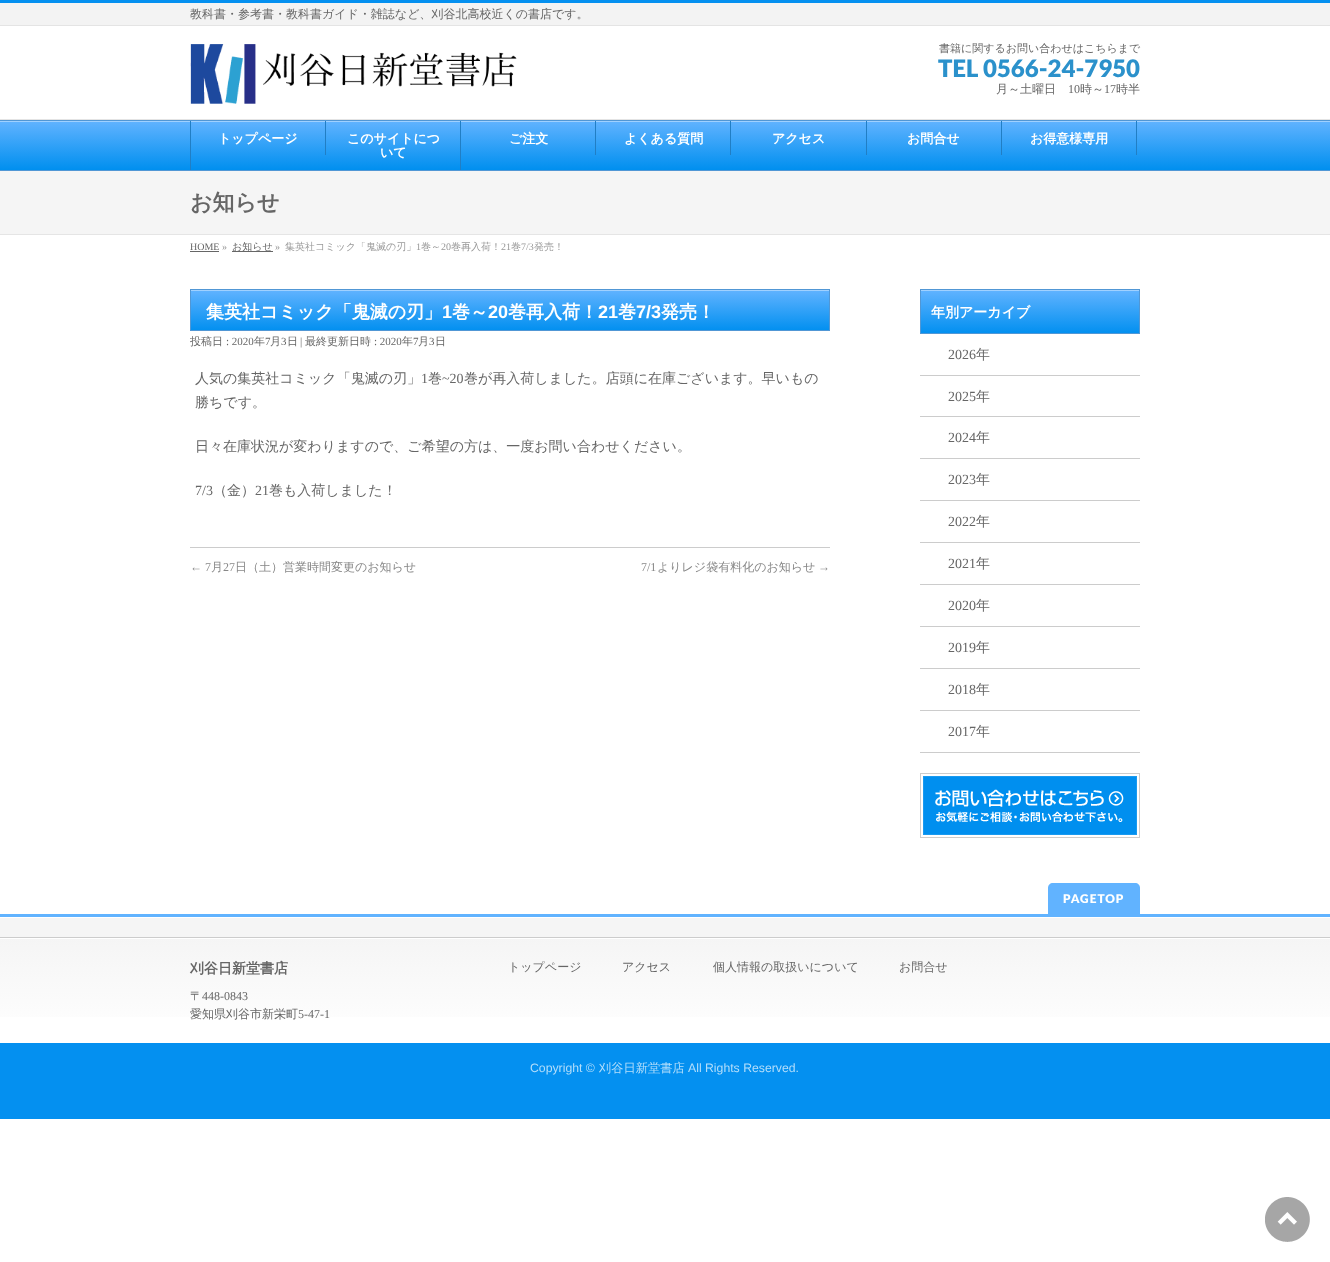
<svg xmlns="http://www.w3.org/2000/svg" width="1330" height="1262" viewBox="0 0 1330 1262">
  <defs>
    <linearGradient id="g1" gradientUnits="userSpaceOnUse" x1="665" y1="121" x2="665" y2="170"><stop offset="0" stop-color="#61b3ff"/><stop offset="1" stop-color="#008fef"/></linearGradient>
    <linearGradient id="g2" gradientUnits="userSpaceOnUse" x1="510" y1="290" x2="510" y2="330"><stop offset="0" stop-color="#61b3ff"/><stop offset="1" stop-color="#0390f0"/></linearGradient>
    <linearGradient id="g3" gradientUnits="userSpaceOnUse" x1="1030" y1="290" x2="1030" y2="333"><stop offset="0" stop-color="#61b3ff"/><stop offset="1" stop-color="#0390f0"/></linearGradient>
    <linearGradient id="g4" gradientUnits="userSpaceOnUse" x1="0" y1="938" x2="0" y2="1043"><stop offset="0" stop-color="#f5f5f5"/><stop offset="1" stop-color="#ffffff"/></linearGradient>
  </defs>
  <rect width="100%" height="100%" fill="#ffffff"/>
  <rect x="0" y="3" width="1330" height="22" fill="#f3f3f3"/>
  <rect x="0" y="0" width="1330" height="3" fill="#0490f0"/>
  <text x="190" y="18" font-family="WenQuanYi Zen Hei" font-size="12" font-weight="500" fill="#666666">教科書・参考書・教科書ガイド・雑誌など、刈谷北高校近くの書店です。</text>
  <rect x="0" y="25" width="1330" height="1" fill="#e4e4e4"/>
  <rect x="0" y="119" width="1330" height="1" fill="#e4e4e4"/>
  <image x="190" y="44" width="327" height="60" href="img1.png"/>
  <text x="939" y="52" font-family="WenQuanYi Zen Hei" font-size="11" font-weight="500" fill="#666666">書籍に関するお問い合わせはこちらまで</text>
  <text x="938" y="77" font-family="Lato" font-size="24" font-weight="900" fill="#2b91cb">TEL 0566-24-7950</text>
  <text x="996" y="93" font-family="WenQuanYi Zen Hei" font-size="12" font-weight="500" fill="#666666">月～土曜日</text>
  <text x="1068" y="93" font-family="Liberation Serif" font-size="12" fill="#666666">10</text>
  <text x="1080" y="93" font-family="WenQuanYi Zen Hei" font-size="12" font-weight="500" fill="#666666">時～</text>
  <text x="1104" y="93" font-family="Liberation Serif" font-size="12" fill="#666666">17</text>
  <text x="1116" y="93" font-family="WenQuanYi Zen Hei" font-size="12" font-weight="500" fill="#666666">時半</text>
  <rect x="0" y="122" width="1330" height="48" fill="url(#g1)"/>
  <rect x="0" y="121" width="1330" height="1" fill="#a0d1ff"/>
  <rect x="0" y="120" width="1330" height="1" fill="#5197d5"/>
  <rect x="0" y="170" width="1330" height="1" fill="#5197d5"/>
  <rect x="190" y="121" width="1" height="49" fill="#217ec4"/>
  <rect x="325" y="121" width="1" height="34" fill="#217ec4"/>
  <text x="218" y="143" font-family="WenQuanYi Zen Hei" font-size="13" font-weight="bold" fill="#ffffff">トップページ</text>
  <rect x="460" y="121" width="1" height="49" fill="#217ec4"/>
  <text x="347" y="143" font-family="WenQuanYi Zen Hei" font-size="13" font-weight="bold" fill="#ffffff">このサイトにつ</text>
  <text x="380" y="157" font-family="WenQuanYi Zen Hei" font-size="13" font-weight="bold" fill="#ffffff">いて</text>
  <rect x="595" y="121" width="1" height="34" fill="#217ec4"/>
  <text x="509" y="143" font-family="WenQuanYi Zen Hei" font-size="13" font-weight="bold" fill="#ffffff">ご注文</text>
  <rect x="730" y="121" width="1" height="34" fill="#217ec4"/>
  <text x="624" y="143" font-family="WenQuanYi Zen Hei" font-size="13" font-weight="bold" fill="#ffffff">よくある質問</text>
  <rect x="866" y="121" width="1" height="34" fill="#217ec4"/>
  <text x="772" y="143" font-family="WenQuanYi Zen Hei" font-size="13" font-weight="bold" fill="#ffffff">アクセス</text>
  <rect x="1001" y="121" width="1" height="34" fill="#217ec4"/>
  <text x="907" y="143" font-family="WenQuanYi Zen Hei" font-size="13" font-weight="bold" fill="#ffffff">お問合せ</text>
  <rect x="1136" y="121" width="1" height="34" fill="#217ec4"/>
  <text x="1030" y="143" font-family="WenQuanYi Zen Hei" font-size="13" font-weight="bold" fill="#ffffff">お得意様専用</text>
  <rect x="0" y="171" width="1330" height="63" fill="#f5f5f5"/>
  <rect x="0" y="234" width="1330" height="1" fill="#e5e5e5"/>
  <text x="190" y="210" font-family="WenQuanYi Zen Hei" font-size="22" font-weight="bold" fill="#666666">お知らせ</text>
  <text x="190" y="250" font-family="Liberation Serif" font-size="10" fill="#666666">HOME</text>
  <rect x="190" y="251" width="29" height="1" fill="#666666"/>
  <text x="222" y="250" font-family="Liberation Serif" font-size="10" fill="#999999">»</text>
  <rect x="232" y="251" width="41" height="1" fill="#666666"/>
  <text x="232" y="250" font-family="WenQuanYi Zen Hei" font-size="10" font-weight="500" fill="#666666">お知らせ</text>
  <text x="275" y="250" font-family="Liberation Serif" font-size="10" fill="#999999">»</text>
  <text x="285" y="250" font-family="WenQuanYi Zen Hei" font-size="10" font-weight="500" fill="#999999">集英社コミック「鬼滅の刃」</text>
  <text x="416" y="250" font-family="Liberation Serif" font-size="10" fill="#999999">1</text>
  <text x="421" y="250" font-family="WenQuanYi Zen Hei" font-size="10" font-weight="500" fill="#999999">巻～</text>
  <text x="441" y="250" font-family="Liberation Serif" font-size="10" fill="#999999">20</text>
  <text x="451" y="250" font-family="WenQuanYi Zen Hei" font-size="10" font-weight="500" fill="#999999">巻再入荷！</text>
  <text x="501" y="250" font-family="Liberation Serif" font-size="10" fill="#999999">21</text>
  <text x="511" y="250" font-family="WenQuanYi Zen Hei" font-size="10" font-weight="500" fill="#999999">巻</text>
  <text x="521" y="250" font-family="Liberation Serif" font-size="10" fill="#999999">7/3</text>
  <text x="534" y="250" font-family="WenQuanYi Zen Hei" font-size="10" font-weight="500" fill="#999999">発売！</text>
  <rect x="191" y="291" width="638" height="39" fill="url(#g2)"/>
  <rect x="191" y="290" width="638" height="1" fill="#a0d1ff"/>
  <rect x="190.5" y="289.5" width="639" height="41" fill="none" stroke="#5197d5"/>
  <text x="206" y="318" font-family="WenQuanYi Zen Hei" font-size="18" font-weight="bold" fill="#ffffff">集英社コミック「鬼滅の刃」</text>
  <text x="442" y="318" font-family="Liberation Sans" font-size="18" font-weight="bold" fill="#ffffff">1</text>
  <text x="452" y="318" font-family="WenQuanYi Zen Hei" font-size="18" font-weight="bold" fill="#ffffff">巻～</text>
  <text x="488" y="318" font-family="Liberation Sans" font-size="18" font-weight="bold" fill="#ffffff">20</text>
  <text x="508" y="318" font-family="WenQuanYi Zen Hei" font-size="18" font-weight="bold" fill="#ffffff">巻再入荷！</text>
  <text x="598" y="318" font-family="Liberation Sans" font-size="18" font-weight="bold" fill="#ffffff">21</text>
  <text x="618" y="318" font-family="WenQuanYi Zen Hei" font-size="18" font-weight="bold" fill="#ffffff">巻</text>
  <text x="636" y="318" font-family="Liberation Sans" font-size="18" font-weight="bold" fill="#ffffff">7/3</text>
  <text x="661" y="318" font-family="WenQuanYi Zen Hei" font-size="18" font-weight="bold" fill="#ffffff">発売！</text>
  <text x="190" y="345" font-family="WenQuanYi Zen Hei" font-size="11" font-weight="500" fill="#666666">投稿日</text>
  <text x="226" y="345" font-family="Liberation Serif" font-size="11" fill="#666666">: 2020</text>
  <text x="254" y="345" font-family="WenQuanYi Zen Hei" font-size="11" font-weight="500" fill="#666666">年</text>
  <text x="265" y="345" font-family="Liberation Serif" font-size="11" fill="#666666">7</text>
  <text x="270" y="345" font-family="WenQuanYi Zen Hei" font-size="11" font-weight="500" fill="#666666">月</text>
  <text x="281" y="345" font-family="Liberation Serif" font-size="11" fill="#666666">3</text>
  <text x="287" y="345" font-family="WenQuanYi Zen Hei" font-size="11" font-weight="500" fill="#666666">日</text>
  <text x="300" y="345" font-family="Liberation Serif" font-size="11" fill="#666666">|</text>
  <text x="305" y="345" font-family="WenQuanYi Zen Hei" font-size="11" font-weight="500" fill="#666666">最終更新日時</text>
  <text x="374" y="345" font-family="Liberation Serif" font-size="11" fill="#666666">: 2020</text>
  <text x="402" y="345" font-family="WenQuanYi Zen Hei" font-size="11" font-weight="500" fill="#666666">年</text>
  <text x="413" y="345" font-family="Liberation Serif" font-size="11" fill="#666666">7</text>
  <text x="418" y="345" font-family="WenQuanYi Zen Hei" font-size="11" font-weight="500" fill="#666666">月</text>
  <text x="429" y="345" font-family="Liberation Serif" font-size="11" fill="#666666">3</text>
  <text x="435" y="345" font-family="WenQuanYi Zen Hei" font-size="11" font-weight="500" fill="#666666">日</text>
  <text x="195" y="383" font-family="WenQuanYi Zen Hei" font-size="14" font-weight="500" fill="#666666">人気の集英社コミック「鬼滅の刃」</text>
  <text x="421" y="383" font-family="Liberation Serif" font-size="14" fill="#666666">1</text>
  <text x="428" y="383" font-family="WenQuanYi Zen Hei" font-size="14" font-weight="500" fill="#666666">巻</text>
  <text x="442" y="383" font-family="Liberation Serif" font-size="14" fill="#666666">~20</text>
  <text x="464" y="383" font-family="WenQuanYi Zen Hei" font-size="14" font-weight="500" fill="#666666">巻が再入荷しました。店頭に在庫ございます。早いもの</text>
  <text x="195" y="407" font-family="WenQuanYi Zen Hei" font-size="14" font-weight="500" fill="#666666">勝ちです。</text>
  <text x="195" y="451" font-family="WenQuanYi Zen Hei" font-size="14" font-weight="500" fill="#666666">日々在庫状況が変わりますので、ご希望の方は、一度お問い合わせください。</text>
  <text x="195" y="495" font-family="Liberation Serif" font-size="14" fill="#666666">7/3</text>
  <text x="213" y="495" font-family="WenQuanYi Zen Hei" font-size="14" font-weight="500" fill="#666666">（金）</text>
  <text x="255" y="495" font-family="Liberation Serif" font-size="14" fill="#666666">21</text>
  <text x="269" y="495" font-family="WenQuanYi Zen Hei" font-size="14" font-weight="500" fill="#666666">巻も入荷しました！</text>
  <rect x="190" y="547" width="640" height="1" fill="#cccccc"/>
  <text x="190" y="571" font-family="Liberation Serif" font-size="12" fill="#888888">← 7</text>
  <text x="211" y="571" font-family="WenQuanYi Zen Hei" font-size="12" font-weight="500" fill="#888888">月</text>
  <text x="223" y="571" font-family="Liberation Serif" font-size="12" fill="#888888">27</text>
  <text x="235" y="571" font-family="WenQuanYi Zen Hei" font-size="12" font-weight="500" fill="#888888">日（土）営業時間変更のお知らせ</text>
  <text x="641" y="571" font-family="Liberation Serif" font-size="12" fill="#888888">7/1</text>
  <text x="657" y="571" font-family="WenQuanYi Zen Hei" font-size="12" font-weight="500" fill="#888888">よりレジ袋有料化のお知らせ</text>
  <text x="818" y="571" font-family="Liberation Serif" font-size="12" fill="#888888">→</text>
  <rect x="921" y="291" width="218" height="42" fill="url(#g3)"/>
  <rect x="921" y="290" width="218" height="1" fill="#a0d1ff"/>
  <rect x="920.5" y="289.5" width="219" height="44" fill="none" stroke="#5197d5"/>
  <text x="931" y="317" font-family="WenQuanYi Zen Hei" font-size="14" font-weight="bold" fill="#ffffff">年別アーカイブ</text>
  <rect x="920" y="375" width="220" height="1" fill="#cccccc"/>
  <text x="948" y="359" font-family="Liberation Serif" font-size="14" fill="#666666">2026</text>
  <text x="976" y="359" font-family="WenQuanYi Zen Hei" font-size="14" font-weight="500" fill="#666666">年</text>
  <rect x="920" y="416" width="220" height="1" fill="#cccccc"/>
  <text x="948" y="401" font-family="Liberation Serif" font-size="14" fill="#666666">2025</text>
  <text x="976" y="401" font-family="WenQuanYi Zen Hei" font-size="14" font-weight="500" fill="#666666">年</text>
  <rect x="920" y="458" width="220" height="1" fill="#cccccc"/>
  <text x="948" y="442" font-family="Liberation Serif" font-size="14" fill="#666666">2024</text>
  <text x="976" y="442" font-family="WenQuanYi Zen Hei" font-size="14" font-weight="500" fill="#666666">年</text>
  <rect x="920" y="500" width="220" height="1" fill="#cccccc"/>
  <text x="948" y="484" font-family="Liberation Serif" font-size="14" fill="#666666">2023</text>
  <text x="976" y="484" font-family="WenQuanYi Zen Hei" font-size="14" font-weight="500" fill="#666666">年</text>
  <rect x="920" y="542" width="220" height="1" fill="#cccccc"/>
  <text x="948" y="526" font-family="Liberation Serif" font-size="14" fill="#666666">2022</text>
  <text x="976" y="526" font-family="WenQuanYi Zen Hei" font-size="14" font-weight="500" fill="#666666">年</text>
  <rect x="920" y="584" width="220" height="1" fill="#cccccc"/>
  <text x="948" y="568" font-family="Liberation Serif" font-size="14" fill="#666666">2021</text>
  <text x="976" y="568" font-family="WenQuanYi Zen Hei" font-size="14" font-weight="500" fill="#666666">年</text>
  <rect x="920" y="626" width="220" height="1" fill="#cccccc"/>
  <text x="948" y="610" font-family="Liberation Serif" font-size="14" fill="#666666">2020</text>
  <text x="976" y="610" font-family="WenQuanYi Zen Hei" font-size="14" font-weight="500" fill="#666666">年</text>
  <rect x="920" y="668" width="220" height="1" fill="#cccccc"/>
  <text x="948" y="652" font-family="Liberation Serif" font-size="14" fill="#666666">2019</text>
  <text x="976" y="652" font-family="WenQuanYi Zen Hei" font-size="14" font-weight="500" fill="#666666">年</text>
  <rect x="920" y="710" width="220" height="1" fill="#cccccc"/>
  <text x="948" y="694" font-family="Liberation Serif" font-size="14" fill="#666666">2018</text>
  <text x="976" y="694" font-family="WenQuanYi Zen Hei" font-size="14" font-weight="500" fill="#666666">年</text>
  <rect x="920" y="752" width="220" height="1" fill="#cccccc"/>
  <text x="948" y="736" font-family="Liberation Serif" font-size="14" fill="#666666">2017</text>
  <text x="976" y="736" font-family="WenQuanYi Zen Hei" font-size="14" font-weight="500" fill="#666666">年</text>
  <rect x="923" y="776" width="214" height="59" fill="#008fef"/>
  <image x="920" y="773" width="220" height="65" href="img2.png"/>
  <path d="M1053 883H1135C1138 883 1140 885 1140 888V914H1048V888C1048 885 1050 883 1053 883Z" fill="#61b3ff"/>
  <text x="1063" y="903" font-family="Lato" font-size="12" font-weight="900" letter-spacing="1" fill="#ffffff">PAGETOP</text>
  <rect x="0" y="918" width="1330" height="19" fill="#f5f5f5"/>
  <rect x="0" y="914" width="1330" height="3" fill="#61b3ff"/>
  <rect x="0" y="939" width="1330" height="78" fill="url(#g4)"/>
  <rect x="0" y="937" width="1330" height="1" fill="#cccccc"/>
  <text x="190" y="973" font-family="WenQuanYi Zen Hei" font-size="14" font-weight="bold" fill="#666666">刈谷日新堂書店</text>
  <text x="190" y="1000" font-family="WenQuanYi Zen Hei" font-size="12" font-weight="500" fill="#666666">〒</text>
  <text x="202" y="1000" font-family="Liberation Serif" font-size="12" fill="#666666">448-0843</text>
  <text x="190" y="1018" font-family="WenQuanYi Zen Hei" font-size="12" font-weight="500" fill="#666666">愛知県刈谷市新栄町</text>
  <text x="298" y="1018" font-family="Liberation Serif" font-size="12" fill="#666666">5-47-1</text>
  <text x="508" y="971" font-family="WenQuanYi Zen Hei" font-size="12" font-weight="500" fill="#666666">トップページ</text>
  <text x="622" y="971" font-family="WenQuanYi Zen Hei" font-size="12" font-weight="500" fill="#666666">アクセス</text>
  <text x="713" y="971" font-family="WenQuanYi Zen Hei" font-size="12" font-weight="500" fill="#666666">個人情報の取扱いについて</text>
  <text x="899" y="971" font-family="WenQuanYi Zen Hei" font-size="12" font-weight="500" fill="#666666">お問合せ</text>
  <rect x="0" y="1043" width="1330" height="76" fill="#0490f0"/>
  <text x="530" y="1072" font-family="Liberation Sans" font-size="12.25" fill="#b4defb">Copyright ©</text>
  <text x="599" y="1072" font-family="WenQuanYi Zen Hei" font-size="12.25" font-weight="500" fill="#b4defb">刈谷日新堂書店</text>
  <text x="688" y="1072" font-family="Liberation Sans" font-size="12.25" fill="#b4defb">All Rights Reserved.</text>
  <image x="1265" y="1197" width="45" height="45" href="img3.png"/>
</svg>
